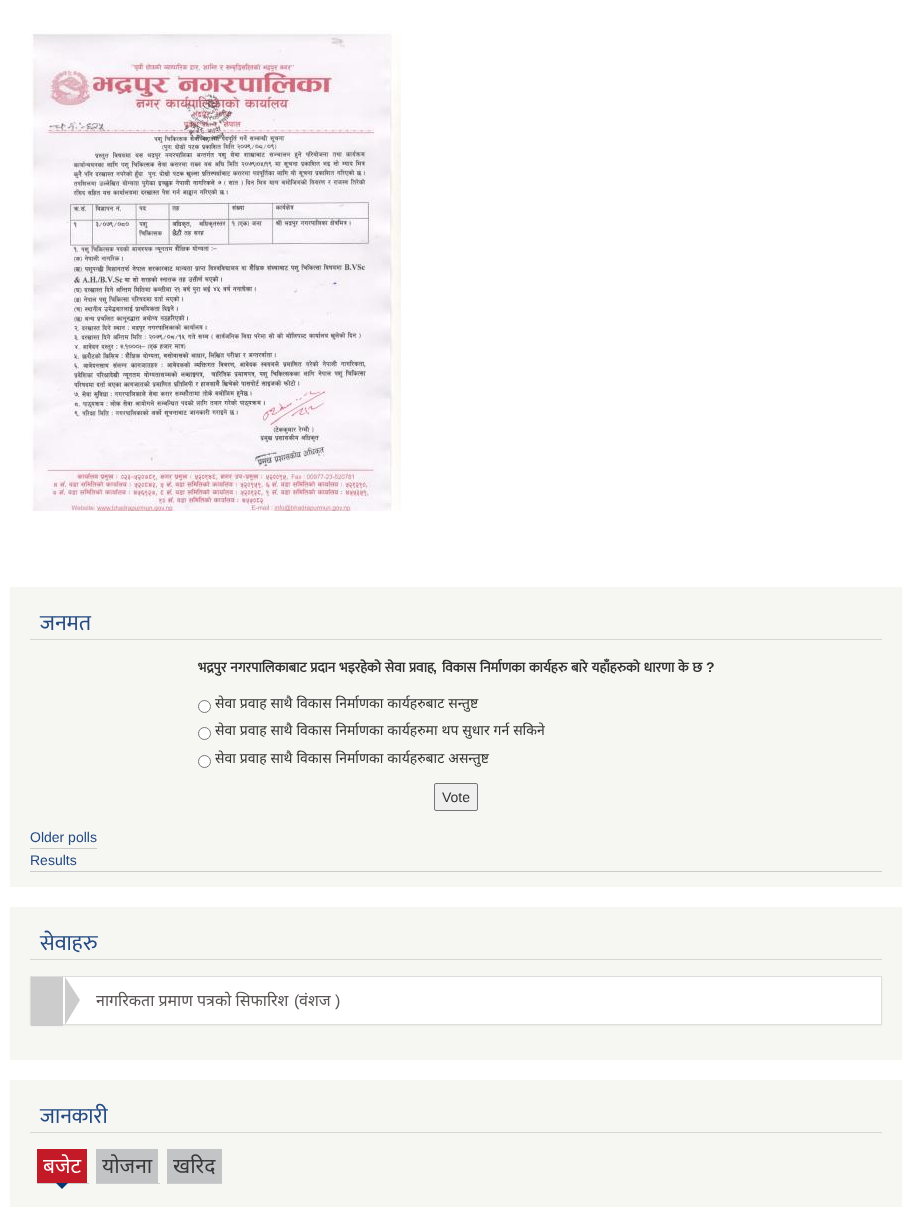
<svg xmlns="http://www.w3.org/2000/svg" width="912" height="1207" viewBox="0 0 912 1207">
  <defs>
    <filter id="blur1" x="-50%" y="-200%" width="200%" height="500%"><feGaussianBlur stdDeviation="1"/></filter>
  </defs>
  <rect width="100%" height="100%" fill="#ffffff"/>
  <image x="30" y="31" width="371" height="480" href="img1.png"/>
  <rect x="10" y="587" width="892" height="300" fill="#f6f6f2"/>
  <rect x="30" y="639" width="852" height="1" fill="#d6d6d6"/>
  <text x="40" y="630" font-family="Mukta" font-size="22" fill="#234a83">जनमत</text>
  <text x="198" y="672" word-spacing="0.75" font-family="Mukta" font-size="14" font-weight="bold" fill="#333333">भद्रपुर नगरपालिकाबाट प्रदान भइरहेको सेवा प्रवाह</text>
  <text x="433" y="672" font-family="Liberation Sans" font-size="14" font-weight="bold" fill="#333333">,</text>
  <text x="442" y="672" word-spacing="0.75" font-family="Mukta" font-size="14" font-weight="bold" fill="#333333">विकास निर्माणका कार्यहरु बारे यहाँहरुको धारणा के छ</text>
  <text x="706" y="672" font-family="Liberation Sans" font-size="14" font-weight="bold" fill="#333333">?</text>
  <circle cx="204.5" cy="706.5" r="6" fill="#ffffff" stroke="#767676"/>
  <text x="215" y="708" word-spacing="0.25" font-family="Noto Sans" font-size="14" fill="#333333">सेवा प्रवाह साथै विकास निर्माणका कार्यहरुबाट सन्तुष्ट</text>
  <circle cx="204.5" cy="733.5" r="6" fill="#ffffff" stroke="#767676"/>
  <text x="215" y="735" word-spacing="0.25" font-family="Noto Sans" font-size="14" fill="#333333">सेवा प्रवाह साथै विकास निर्माणका कार्यहरुमा थप सुधार गर्न सकिने</text>
  <circle cx="204.5" cy="761.5" r="6" fill="#ffffff" stroke="#767676"/>
  <text x="215" y="763" word-spacing="0.25" font-family="Noto Sans" font-size="14" fill="#333333">सेवा प्रवाह साथै विकास निर्माणका कार्यहरुबाट असन्तुष्ट</text>
  <rect x="434.5" y="783.5" width="43" height="27" rx="1.5" fill="#efefef" stroke="#767676"/>
  <text x="442" y="802" font-family="Liberation Sans" font-size="14" fill="#333333">Vote</text>
  <rect x="30" y="848" width="67" height="1" fill="#cccccc"/>
  <text x="30" y="842" font-family="Liberation Sans" font-size="14" fill="#234a83">Older polls</text>
  <rect x="30" y="871" width="852" height="1" fill="#cccccc"/>
  <text x="30" y="865" font-family="Liberation Sans" font-size="14" fill="#234a83">Results</text>
  <rect x="10" y="907" width="892" height="153" fill="#f6f6f2"/>
  <rect x="30" y="959" width="852" height="1" fill="#d6d6d6"/>
  <text x="40" y="950" font-family="Mukta" font-size="22" fill="#234a83">सेवाहरु</text>
  <rect x="30" y="977" width="852" height="49" fill="#000000" fill-opacity="0.05" filter="url(#blur1)"/>
  <rect x="30.5" y="976.5" width="851" height="48" fill="none" stroke="#dddddd"/>
  <rect x="63" y="977" width="818" height="47" fill="#ffffff"/>
  <path d="M65 1025V977L80 1000Z" fill="#cccccc"/>
  <rect x="31" y="977" width="32" height="49" fill="#cccccc"/>
  <text x="96" y="1006" font-family="Noto Sans" font-size="16" fill="#5b5656">नागरिकता प्रमाण पत्रको सिफारिश</text>
  <text x="294" y="1006" font-family="Liberation Sans" font-size="16" fill="#5b5656">(</text>
  <text x="299" y="1006" font-family="Noto Sans" font-size="16" fill="#5b5656">वंशज</text>
  <text x="335" y="1006" font-family="Liberation Sans" font-size="16" fill="#5b5656">)</text>
  <rect x="10" y="1080" width="892" height="127" fill="#f6f6f2"/>
  <rect x="30" y="1132" width="852" height="1" fill="#d6d6d6"/>
  <text x="40" y="1123" font-family="Mukta" font-size="22" fill="#234a83">जानकारी</text>
  <rect x="37" y="1183" width="52" height="1" fill="#cccccc"/>
  <rect x="37" y="1149" width="50" height="34" fill="#c41a28"/>
  <text x="43" y="1173" font-family="Noto Sans" font-size="21" fill="#ffffff">बजेट</text>
  <path d="M56 1183H68L62 1189Z" fill="#053775"/>
  <rect x="96" y="1183" width="64" height="1" fill="#cccccc"/>
  <rect x="96" y="1149" width="62" height="34" fill="#c2c4c6"/>
  <text x="102" y="1173" font-family="Noto Sans" font-size="21" fill="#393939">योजना</text>
  <rect x="167" y="1183" width="55" height="1" fill="#cccccc"/>
  <rect x="167" y="1149" width="55" height="34" fill="#c2c4c6"/>
  <text x="173" y="1173" font-family="Noto Sans" font-size="21" fill="#393939">खरिद</text>
</svg>
